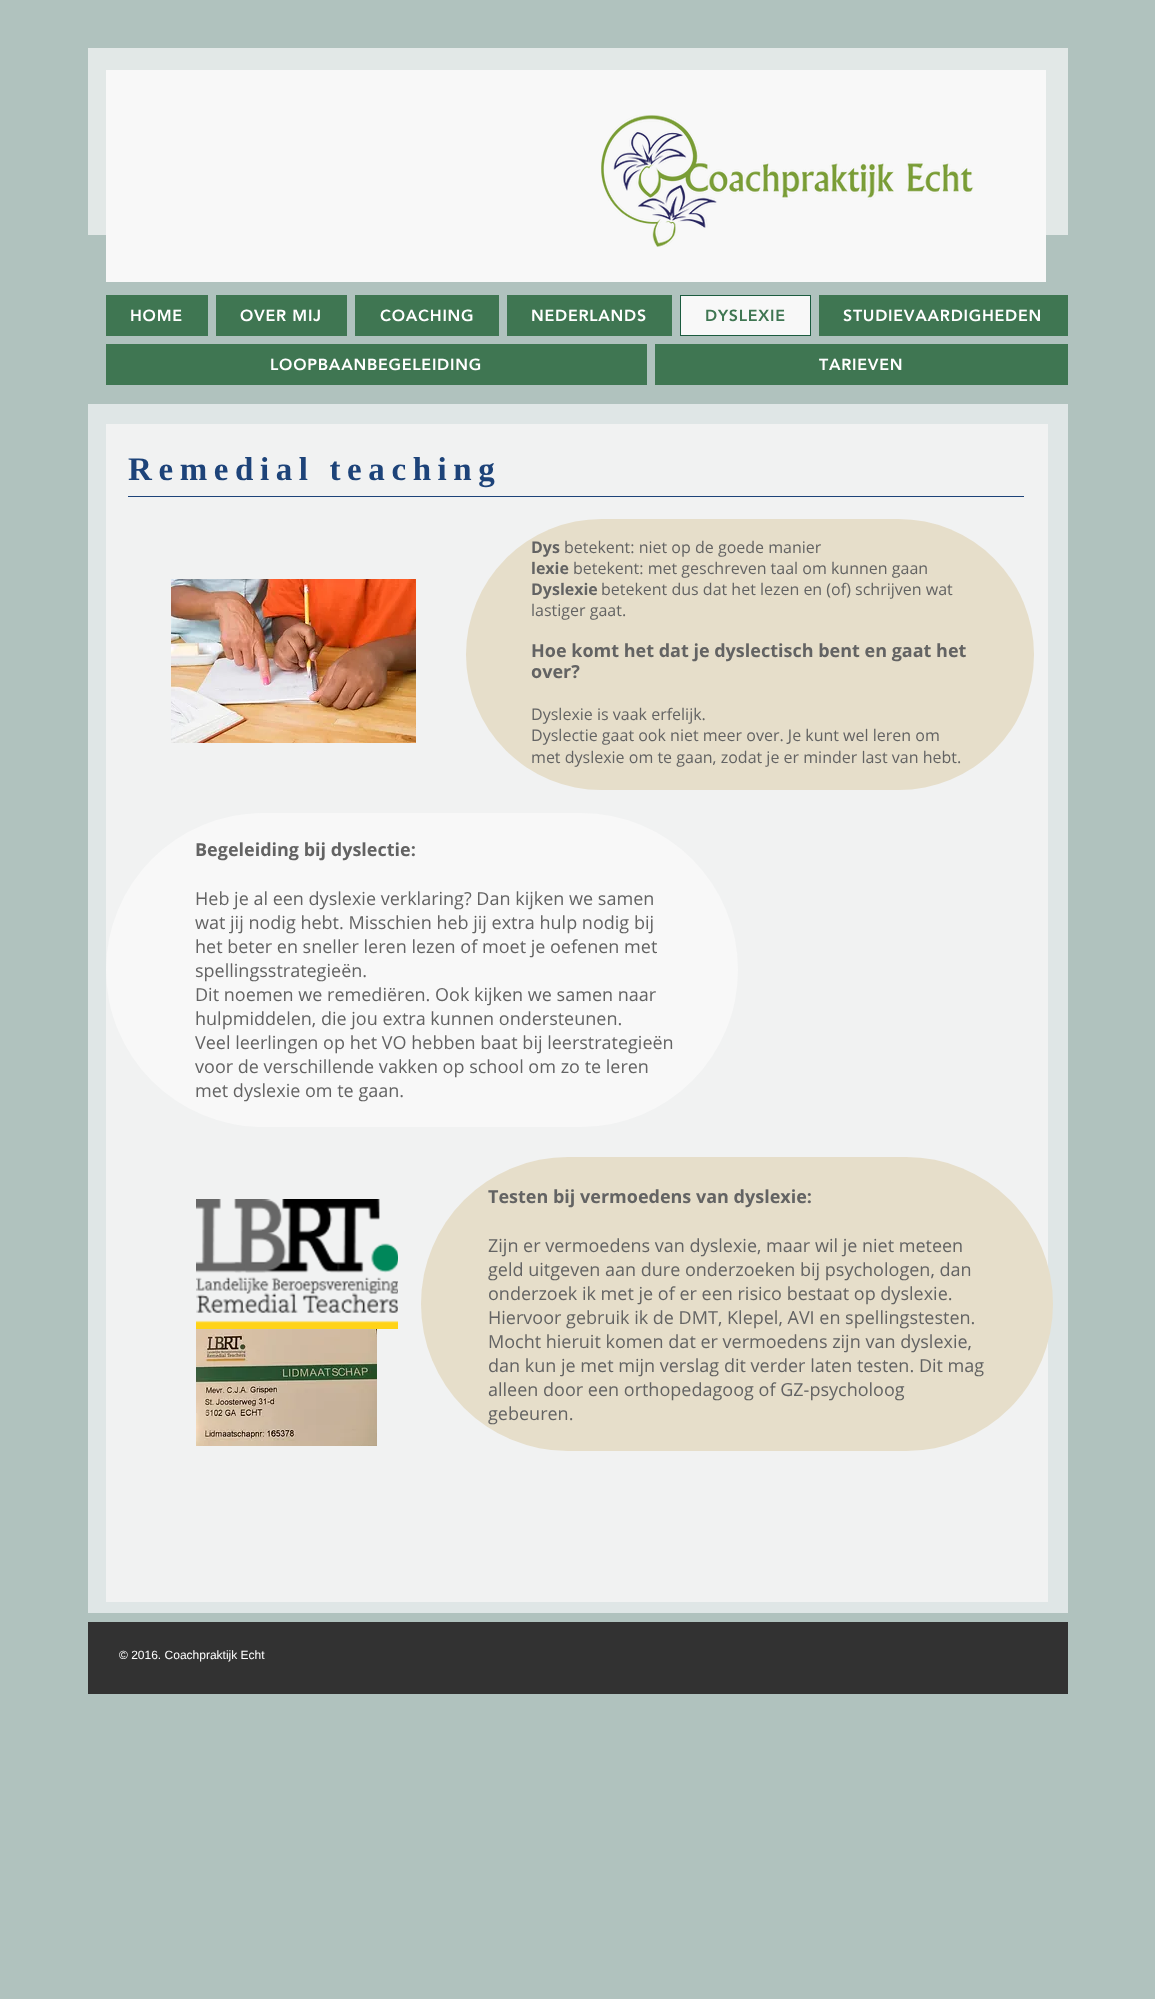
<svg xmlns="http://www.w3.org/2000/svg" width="1155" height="1999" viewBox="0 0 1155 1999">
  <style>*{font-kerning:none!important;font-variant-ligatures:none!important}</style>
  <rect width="100%" height="100%" fill="#b0c2be"/>
  <rect x="88" y="48" width="980" height="187" fill="#e2e8e7"/>
  <rect x="106" y="70" width="940" height="212" fill="#f8f8f8"/>
  <image x="601" y="115" width="373" height="132" href="img1.png"/>
  <rect x="106" y="295" width="102" height="41" fill="#3f7652"/>
  <text x="130" y="321" font-family="'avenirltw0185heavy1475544'" font-size="16" font-weight="900" letter-spacing="0.75" fill="#ffffff">HOME</text>
  <rect x="216" y="295" width="131" height="41" fill="#3f7652"/>
  <text x="240" y="321" font-family="'avenirltw0185heavy1475544'" font-size="16" font-weight="900" letter-spacing="0.75" fill="#ffffff">OVER MIJ</text>
  <rect x="355" y="295" width="144" height="41" fill="#3f7652"/>
  <text x="380" y="321" font-family="'avenirltw0185heavy1475544'" font-size="16" font-weight="900" letter-spacing="0.75" fill="#ffffff">COACHING</text>
  <rect x="507" y="295" width="165" height="41" fill="#3f7652"/>
  <text x="531" y="321" font-family="'avenirltw0185heavy1475544'" font-size="16" font-weight="900" letter-spacing="0.75" fill="#ffffff">NEDERLANDS</text>
  <rect x="680.5" y="295.5" width="130" height="40" fill="#f8f8f8" stroke="#1b5b3f"/>
  <text x="705" y="321" font-family="'avenirltw0185heavy1475544'" font-size="16" font-weight="900" letter-spacing="0.75" fill="#3f7652">DYSLEXIE</text>
  <rect x="819" y="295" width="249" height="41" fill="#3f7652"/>
  <text x="843" y="321" font-family="'avenirltw0185heavy1475544'" font-size="16" font-weight="900" letter-spacing="0.75" fill="#ffffff">STUDIEVAARDIGHEDEN</text>
  <rect x="106" y="344" width="541" height="41" fill="#3f7652"/>
  <text x="270" y="370" font-family="'avenirltw0185heavy1475544'" font-size="16" font-weight="900" letter-spacing="0.75" fill="#ffffff">LOOPBAANBEGELEIDING</text>
  <rect x="655" y="344" width="413" height="41" fill="#3f7652"/>
  <text x="819" y="370" font-family="'avenirltw0185heavy1475544'" font-size="16" font-weight="900" letter-spacing="0.75" fill="#ffffff">TARIEVEN</text>
  <rect x="88" y="404" width="980" height="1209" fill="#dfe6e6"/>
  <rect x="106" y="424" width="942" height="1178" fill="#f1f2f2"/>
  <text x="128" y="480" font-family="Liberation Serif" font-size="33" font-weight="bold" letter-spacing="6.6" fill="#1d4379">Remedial teaching</text>
  <rect x="128" y="496" width="896" height="1" fill="#1d4379"/>
  <image x="171" y="579" width="245" height="164" href="img2.png"/>
  <rect x="466" y="519" width="568" height="271" rx="135.5" fill="#e6deca"/>
  <text x="531" y="553" font-family="Open Sans" font-size="16" font-weight="bold" fill="#636363">Dys</text>
  <text x="564" y="553" font-family="Open Sans" font-size="16" fill="#636363">betekent: niet op de goede manier</text>
  <text x="531" y="574" font-family="Open Sans" font-size="16" font-weight="bold" fill="#636363">lexie</text>
  <text x="573" y="574" font-family="Open Sans" font-size="16" fill="#636363">betekent: met geschreven taal om kunnen gaan</text>
  <text x="531" y="595" font-family="Open Sans" font-size="16" font-weight="bold" fill="#636363">Dyslexie</text>
  <text x="601" y="595" font-family="Open Sans" font-size="16" fill="#636363">betekent dus dat het lezen en (of) schrijven wat</text>
  <text x="531" y="616" font-family="Open Sans" font-size="16" fill="#636363">lastiger gaat.</text>
  <text x="531" y="657" font-family="Open Sans" font-size="18" font-weight="bold" fill="#636363">Hoe komt het dat je dyslectisch bent en gaat het</text>
  <text x="531" y="678" font-family="Open Sans" font-size="18" font-weight="bold" fill="#636363">over?</text>
  <text x="531" y="720" font-family="Open Sans" font-size="16" fill="#636363">Dyslexie is vaak erfelijk.</text>
  <text x="531" y="741" font-family="Open Sans" font-size="16" fill="#636363">Dyslectie gaat ook niet meer over. Je kunt wel leren om</text>
  <text x="531" y="763" font-family="Open Sans" font-size="16" fill="#636363">met dyslexie om te gaan, zodat je er minder last van hebt.</text>
  <rect x="106" y="813" width="632" height="314" rx="157" fill="#f8f8f8"/>
  <text x="195" y="856" font-family="Open Sans" font-size="18" font-weight="bold" fill="#636363">Begeleiding bij dyslectie:</text>
  <text x="195" y="905" font-family="Open Sans" font-size="18" fill="#636363">Heb je al een dyslexie verklaring? Dan kijken we samen</text>
  <text x="195" y="929" font-family="Open Sans" font-size="18" fill="#636363">wat jij nodig hebt. Misschien heb jij extra hulp nodig bij</text>
  <text x="195" y="953" font-family="Open Sans" font-size="18" fill="#636363">het beter en sneller leren lezen of moet je oefenen met</text>
  <text x="195" y="977" font-family="Open Sans" font-size="18" fill="#636363">spellingsstrategieën.</text>
  <text x="195" y="1001" font-family="Open Sans" font-size="18" fill="#636363">Dit noemen we remediëren. Ook kijken we samen naar</text>
  <text x="195" y="1025" font-family="Open Sans" font-size="18" fill="#636363">hulpmiddelen, die jou extra kunnen ondersteunen.</text>
  <text x="195" y="1049" font-family="Open Sans" font-size="18" fill="#636363">Veel leerlingen op het VO hebben baat bij leerstrategieën</text>
  <text x="195" y="1073" font-family="Open Sans" font-size="18" fill="#636363">voor de verschillende vakken op school om zo te leren</text>
  <text x="195" y="1097" font-family="Open Sans" font-size="18" fill="#636363">met dyslexie om te gaan.</text>
  <image x="196" y="1199" width="202" height="130" href="img3.png"/>
  <rect x="421" y="1157" width="632" height="294" rx="147" fill="#e6deca"/>
  <text x="488" y="1203" font-family="Open Sans" font-size="18" font-weight="bold" fill="#636363">Testen bij vermoedens van dyslexie:</text>
  <text x="488" y="1252" font-family="Open Sans" font-size="18" fill="#636363">Zijn er vermoedens van dyslexie, maar wil je niet meteen</text>
  <text x="488" y="1276" font-family="Open Sans" font-size="18" fill="#636363">geld uitgeven aan dure onderzoeken bij psychologen, dan</text>
  <text x="488" y="1300" font-family="Open Sans" font-size="18" fill="#636363">onderzoek ik met je of er een risico bestaat op dyslexie.</text>
  <text x="488" y="1324" font-family="Open Sans" font-size="18" fill="#636363">Hiervoor gebruik ik de DMT, Klepel, AVI en spellingstesten.</text>
  <text x="488" y="1348" font-family="Open Sans" font-size="18" fill="#636363">Mocht hieruit komen dat er vermoedens zijn van dyslexie,</text>
  <text x="488" y="1372" font-family="Open Sans" font-size="18" fill="#636363">dan kun je met mijn verslag dit verder laten testen. Dit mag</text>
  <text x="488" y="1396" font-family="Open Sans" font-size="18" fill="#636363">alleen door een orthopedagoog of GZ-psycholoog</text>
  <text x="488" y="1420" font-family="Open Sans" font-size="18" fill="#636363">gebeuren.</text>
  <image x="196" y="1329" width="181" height="117" href="img4.png"/>
  <rect x="88" y="1622" width="980" height="72" fill="#323232"/>
  <text x="119" y="1659" font-family="Liberation Sans" font-size="12" fill="#ffffff">© 2016. Coachpraktijk Echt</text>
</svg>
